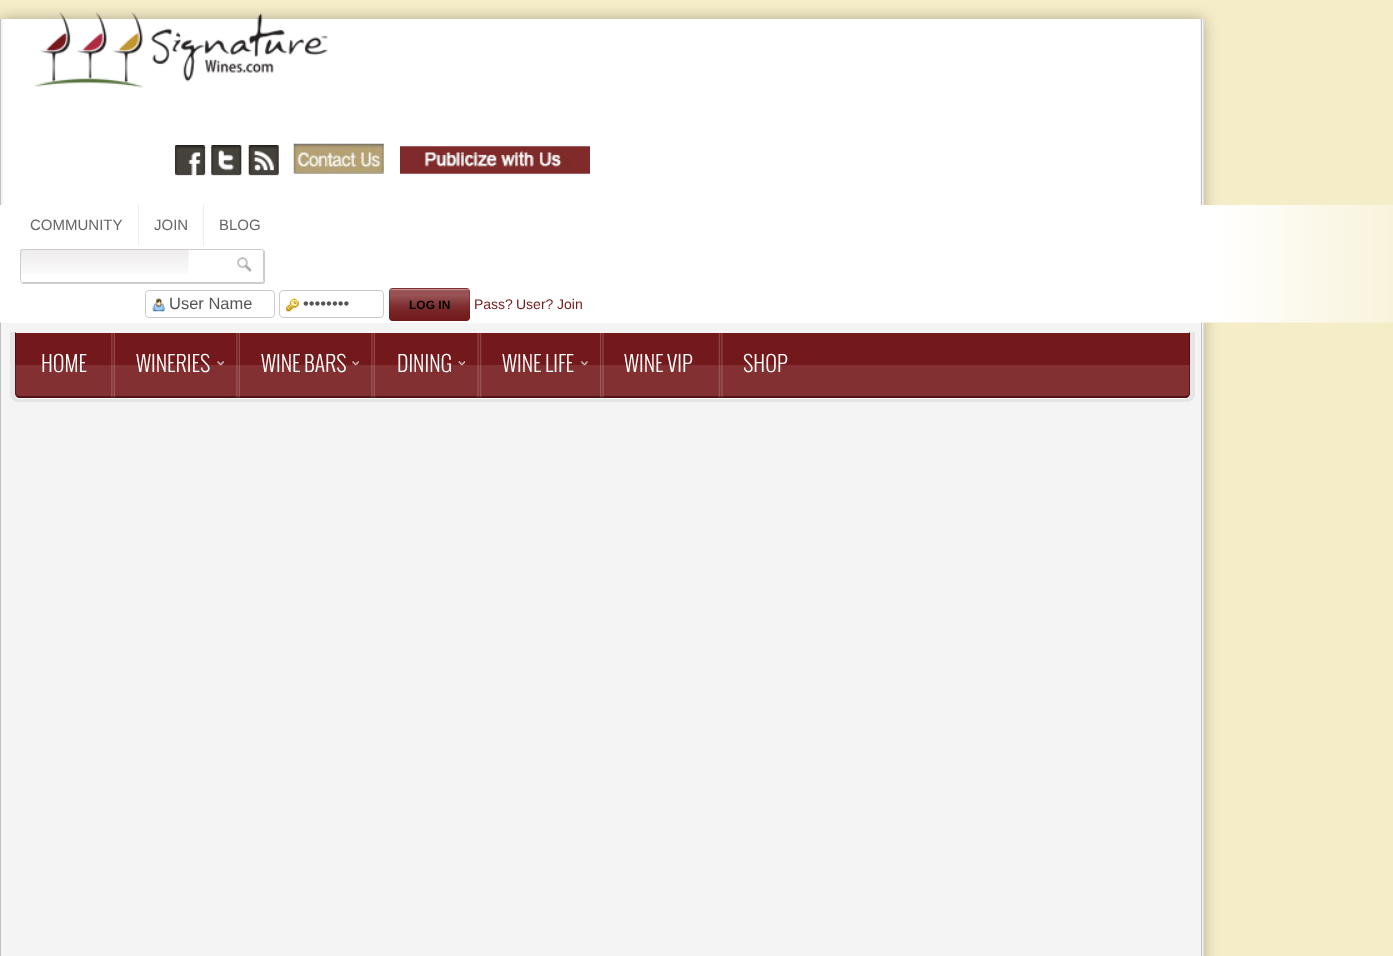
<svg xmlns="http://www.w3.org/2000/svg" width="1393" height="956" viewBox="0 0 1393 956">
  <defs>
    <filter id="blur1" x="-50%" y="-200%" width="200%" height="500%"><feGaussianBlur stdDeviation="7.5"/></filter>
    <clipPath id="clip1"><path d="M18 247H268V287H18ZM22.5 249H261.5C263 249 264 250 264 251.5V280.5C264 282 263 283 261.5 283H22.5C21 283 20 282 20 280.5V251.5C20 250 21 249 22.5 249Z" clip-rule="evenodd"/></clipPath>
    <filter id="blur2" x="-50%" y="-200%" width="200%" height="500%"><feGaussianBlur stdDeviation="0.5"/></filter>
  </defs>
  <rect width="100%" height="100%" fill="#f5edc8"/>
  <rect x="0" y="19" width="1203" height="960" fill="#000000" fill-opacity="0.3" filter="url(#blur1)"/>
  <rect x="1" y="19" width="1202" height="937" fill="#f4f4f4"/>
  <rect x="1201" y="19" width="1" height="937" fill="#c0c0c0"/>
  <rect x="0" y="19" width="1" height="937" fill="#c0c0c0"/>
  <rect x="1203" y="19" width="1" height="937" fill="#e0e0e0"/>
  <rect x="3" y="19" width="1197" height="186" fill="#ffffff"/>
  <image x="34" y="12" width="294" height="76" href="img1.png"/>
  <image x="175" y="145" width="31" height="31" href="img2.png"/>
  <image x="211" y="145" width="31" height="31" href="img3.png"/>
  <image x="248" y="145" width="31" height="31" href="img4.png"/>
  <image x="293" y="143" width="91" height="31" href="img5.png"/>
  <image x="400" y="146" width="190" height="28" href="img6.png"/>
  <image x="0" y="205" width="1" height="118" href="img7.png"/>
  <image x="1200" y="205" width="193" height="118" href="img8.png"/>
  <rect x="1" y="205" width="1199" height="118" fill="#ffffff"/>
  <text x="30" y="230" font-family="Liberation Sans" font-size="15" fill="#666666">COMMUNITY</text>
  <rect x="138" y="205" width="1" height="41" fill="#eeeeee"/>
  <text x="154" y="230" font-family="Liberation Sans" font-size="15" fill="#666666">JOIN</text>
  <rect x="203" y="205" width="1" height="41" fill="#eeeeee"/>
  <text x="219" y="230" font-family="Liberation Sans" font-size="15" fill="#666666">BLOG</text>
  <image x="20" y="249" width="169" height="25" href="img9.png"/>
  <g clip-path="url(#clip1)">
    <rect x="21" y="250" width="244" height="34" rx="2.5" fill="#000000" fill-opacity="0.2" filter="url(#blur2)"/>
  </g>
  <image x="237" y="257" width="15" height="15" href="img10.png"/>
  <rect x="20.5" y="249.5" width="243" height="33" rx="2" fill="none" stroke="#cccccc"/>
  <image x="152" y="298" width="13" height="14" href="img11.png"/>
  <rect x="145.5" y="290.5" width="129" height="27" rx="3.5" fill="none" stroke="#cccccc"/>
  <text x="169" y="309" font-family="Liberation Sans" font-size="16.5" fill="#555555">User Name</text>
  <image x="286" y="298" width="13" height="14" href="img12.png"/>
  <rect x="279.5" y="290.5" width="104" height="27" rx="3.5" fill="none" stroke="#cccccc"/>
  <text x="303" y="309" font-family="Liberation Sans" font-size="16.5" fill="#555555">••••••••</text>
  <rect x="389" y="288" width="81" height="33" rx="4" fill="#781a1c"/>
  <image x="389" y="288" width="81" height="33" href="img13.png"/>
  <rect x="389.5" y="288.5" width="80" height="32" rx="3.5" fill="none" stroke="#74191b" stroke-opacity="0.4"/>
  <text x="409" y="309" font-family="Liberation Sans" font-size="12" font-weight="bold" fill="#000000">LOG IN</text>
  <text x="474" y="309" font-family="Liberation Sans" font-size="14" fill="#74191b">Pass?</text>
  <text x="516" y="309" font-family="Liberation Sans" font-size="14" fill="#74191b">User?</text>
  <text x="557" y="309" font-family="Liberation Sans" font-size="14" fill="#74191b">Join</text>
  <path d="M10 332H1195V394C1195 399 1191 402 1186 402H19C14 402 10 399 10 394ZM15 332H1190V394C1190 396 1188 398 1186 398H19C17 398 15 396 15 394Z" fill="#e5e5e5" fill-rule="evenodd"/>
  <path d="M15 392C15 396 16 399 20 399H1185C1189 399 1190 396 1190 392C1190 395 1188 398 1185 398H20C17 398 15 395 15 392Z" fill="#ffffff" fill-opacity="0.9"/>
  <path d="M15 333H1190V393C1190 396 1188 398 1185 398H20C17 398 15 396 15 393Z" fill="#74191b"/>
  <image x="15" y="365" width="1175" height="32" href="img14.png"/>
  <path d="M1190 332H1189V393L1188 395L1189 396C1190 395 1190 394 1190 392Z" fill="#000000" fill-opacity="0.4"/>
  <path d="M18 398L16 396L17 395L20 396H1185L1188 395L1189 396L1187 398Z" fill="#000000" fill-opacity="0.3"/>
  <path d="M15 332V392C15 394 16 395 16 396L17 395L16 393V332Z" fill="#000000" fill-opacity="0.4"/>
  <text x="41" y="372" font-family="Oswald" font-size="21.5" font-weight="300" fill="#ffffff">HOME</text>
  <image x="111" y="333" width="4" height="65" href="img15.png"/>
  <text x="136" y="372" font-family="Oswald" font-size="21.5" font-weight="300" fill="#ffffff">WINERIES</text>
  <image x="217" y="360" width="7" height="6" href="img16.png"/>
  <image x="236" y="333" width="4" height="65" href="img15.png"/>
  <text x="261" y="372" font-family="Oswald" font-size="21.5" font-weight="300" fill="#ffffff">WINE BARS</text>
  <image x="352" y="360" width="7" height="6" href="img17.png"/>
  <image x="371" y="333" width="4" height="65" href="img18.png"/>
  <text x="397" y="372" font-family="Oswald" font-size="21.5" font-weight="300" fill="#ffffff">DINING</text>
  <image x="458" y="360" width="7" height="6" href="img19.png"/>
  <image x="477" y="333" width="5" height="65" href="img20.png"/>
  <text x="502" y="372" font-family="Oswald" font-size="21.5" font-weight="300" fill="#ffffff">WINE LIFE</text>
  <image x="581" y="360" width="7" height="6" href="img21.png"/>
  <image x="600" y="333" width="4" height="65" href="img22.png"/>
  <text x="624" y="372" font-family="Oswald" font-size="21.5" font-weight="300" fill="#ffffff">WINE VIP</text>
  <image x="718" y="333" width="5" height="65" href="img23.png"/>
  <text x="743" y="372" font-family="Oswald" font-size="21.5" font-weight="300" fill="#ffffff">SHOP</text>
</svg>
